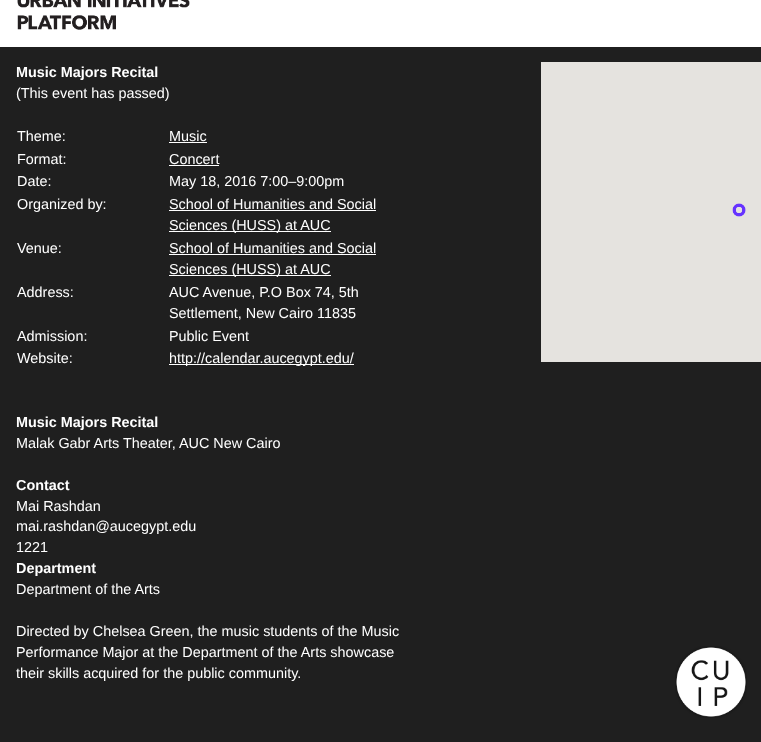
<svg xmlns="http://www.w3.org/2000/svg" width="761" height="742" viewBox="0 0 761 742">
  <rect width="100%" height="100%" fill="#1f1f1f"/>
  <rect x="0" y="0" width="761" height="47" fill="#ffffff"/>
  <image x="17" y="0" width="173" height="30" href="img1.png"/>
  <text x="16" y="77" font-family="Liberation Sans" font-size="14.4" font-weight="bold" fill="#ffffff">Music Majors Recital</text>
  <text x="16" y="98" font-family="Liberation Sans" font-size="14.4" fill="#ffffff">(This event has passed)</text>
  <text x="17" y="141" font-family="Liberation Sans" font-size="14.4" fill="#ffffff">Theme:</text>
  <text x="169" y="141" font-family="Liberation Sans" font-size="14.4" fill="#ffffff">Music</text>
  <rect x="169" y="142" width="38" height="1" fill="#ffffff"/>
  <text x="17" y="164" font-family="Liberation Sans" font-size="14.4" fill="#ffffff">Format:</text>
  <text x="169" y="164" font-family="Liberation Sans" font-size="14.4" fill="#ffffff">Concert</text>
  <rect x="169" y="165" width="50" height="1" fill="#ffffff"/>
  <text x="17" y="186" font-family="Liberation Sans" font-size="14.4" fill="#ffffff">Date:</text>
  <text x="169" y="186" font-family="Liberation Sans" font-size="14.4" fill="#ffffff">May 18, 2016 7:00–9:00pm</text>
  <text x="17" y="209" font-family="Liberation Sans" font-size="14.4" fill="#ffffff">Organized by:</text>
  <text x="169" y="209" font-family="Liberation Sans" font-size="14.4" fill="#ffffff">School of Humanities and Social</text>
  <rect x="169" y="210" width="207" height="1" fill="#ffffff"/>
  <rect x="169" y="231" width="162" height="1" fill="#ffffff"/>
  <text x="169" y="230" font-family="Liberation Sans" font-size="14.4" fill="#ffffff">Sciences (HUSS) at AUC</text>
  <text x="17" y="253" font-family="Liberation Sans" font-size="14.4" fill="#ffffff">Venue:</text>
  <text x="169" y="253" font-family="Liberation Sans" font-size="14.4" fill="#ffffff">School of Humanities and Social</text>
  <rect x="169" y="254" width="207" height="1" fill="#ffffff"/>
  <rect x="169" y="275" width="162" height="1" fill="#ffffff"/>
  <text x="169" y="274" font-family="Liberation Sans" font-size="14.4" fill="#ffffff">Sciences (HUSS) at AUC</text>
  <text x="17" y="297" font-family="Liberation Sans" font-size="14.4" fill="#ffffff">Address:</text>
  <text x="169" y="297" font-family="Liberation Sans" font-size="14.4" fill="#ffffff">AUC Avenue, P.O Box 74, 5th</text>
  <text x="169" y="318" font-family="Liberation Sans" font-size="14.4" fill="#ffffff">Settlement, New Cairo 11835</text>
  <text x="17" y="341" font-family="Liberation Sans" font-size="14.4" fill="#ffffff">Admission:</text>
  <text x="169" y="341" font-family="Liberation Sans" font-size="14.4" fill="#ffffff">Public Event</text>
  <text x="17" y="363" font-family="Liberation Sans" font-size="14.4" fill="#ffffff">Website:</text>
  <rect x="169" y="364" width="185" height="1" fill="#ffffff"/>
  <text x="169" y="363" font-family="Liberation Sans" font-size="14.4" fill="#ffffff">http://calendar.aucegypt.edu/</text>
  <text x="16" y="427" font-family="Liberation Sans" font-size="14.4" font-weight="bold" fill="#ffffff">Music Majors Recital</text>
  <text x="16" y="448" font-family="Liberation Sans" font-size="14.4" fill="#ffffff">Malak Gabr Arts Theater, AUC New Cairo</text>
  <text x="16" y="490" font-family="Liberation Sans" font-size="14.4" font-weight="bold" fill="#ffffff">Contact</text>
  <text x="16" y="511" font-family="Liberation Sans" font-size="14.4" fill="#ffffff">Mai Rashdan</text>
  <text x="16" y="531" font-family="Liberation Sans" font-size="14.4" fill="#ffffff">mai.rashdan@aucegypt.edu</text>
  <text x="16" y="552" font-family="Liberation Sans" font-size="14.4" fill="#ffffff">1221</text>
  <text x="16" y="573" font-family="Liberation Sans" font-size="14.4" font-weight="bold" fill="#ffffff">Department</text>
  <text x="16" y="594" font-family="Liberation Sans" font-size="14.4" fill="#ffffff">Department of the Arts</text>
  <text x="16" y="636" font-family="Liberation Sans" font-size="14.4" fill="#ffffff">Directed by Chelsea Green, the music students of the Music</text>
  <text x="16" y="657" font-family="Liberation Sans" font-size="14.4" fill="#ffffff">Performance Major at the Department of the Arts showcase</text>
  <text x="16" y="678" font-family="Liberation Sans" font-size="14.4" fill="#ffffff">their skills acquired for the public community.</text>
  <rect x="541" y="62" width="220" height="300" fill="#e5e3df"/>
  <image x="732" y="203" width="14" height="14" href="img2.png"/>
  <image x="675" y="646" width="72" height="72" href="img3.png"/>
</svg>
